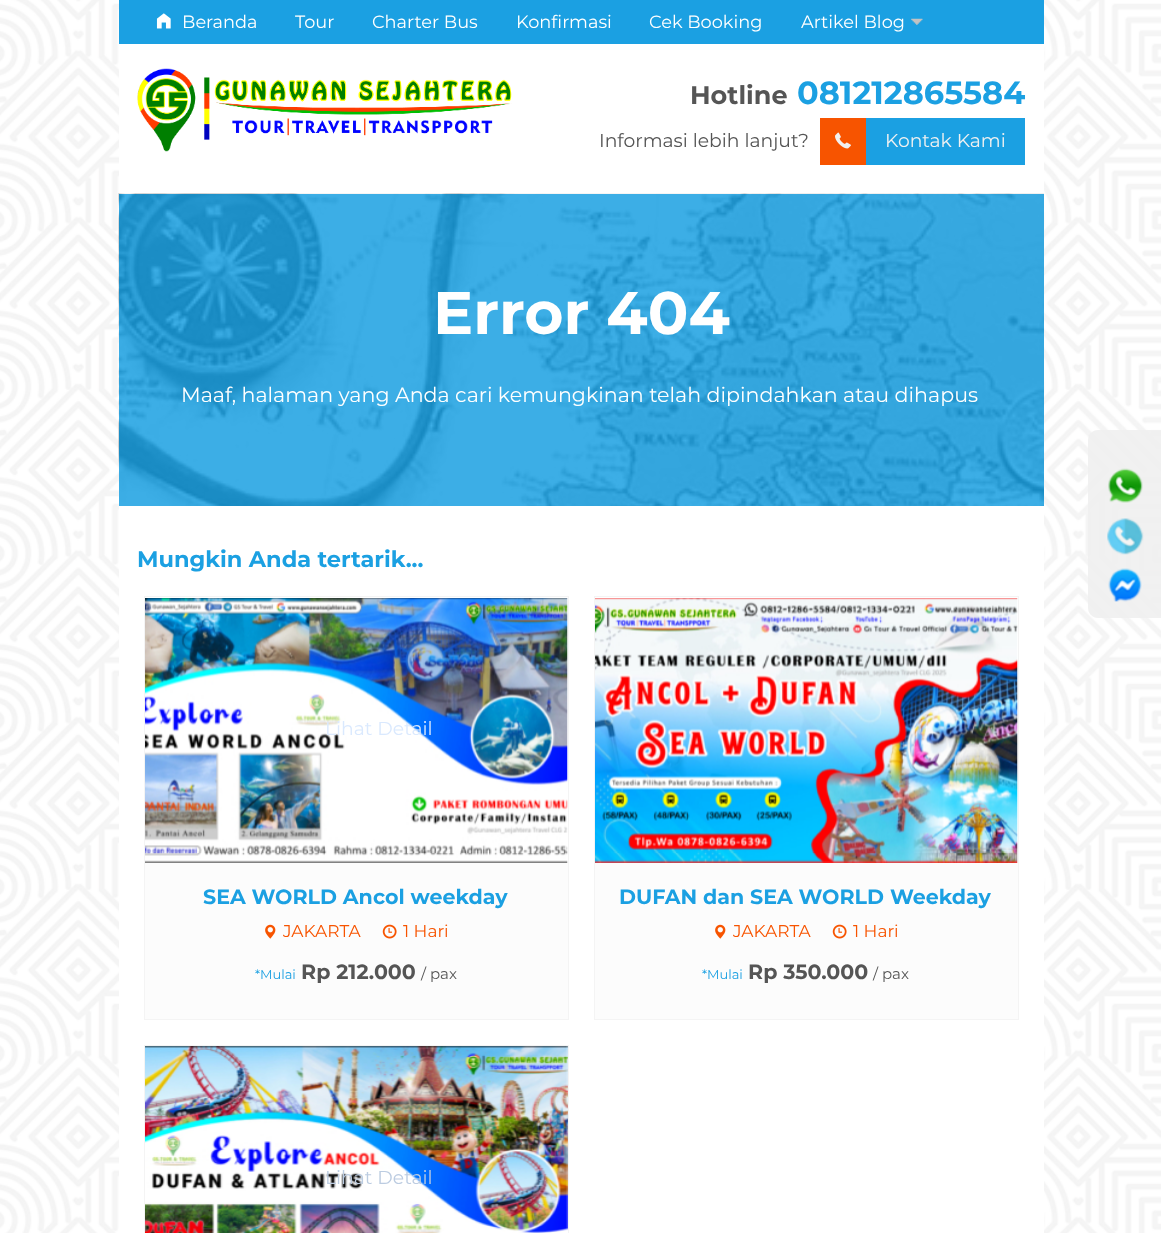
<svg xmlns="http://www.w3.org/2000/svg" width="1161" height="1233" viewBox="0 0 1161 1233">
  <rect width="100%" height="100%" fill="#ffffff"/>
  <image x="0" y="0" width="1161" height="1233" href="img1.png"/>
  <rect x="119" y="0" width="925" height="44" fill="#1ba0e2"/>
  <image x="156" y="13" width="15" height="16" href="img2.png"/>
  <text x="182" y="28" font-family="Montserrat" font-size="17.75" fill="#ffffff">Beranda</text>
  <text x="295" y="28" font-family="Montserrat" font-size="17.75" fill="#ffffff">Tour</text>
  <text x="372" y="28" font-family="Montserrat" font-size="17.75" fill="#ffffff">Charter Bus</text>
  <text x="516" y="28" font-family="Montserrat" font-size="17.75" fill="#ffffff">Konfirmasi</text>
  <text x="649" y="28" font-family="Montserrat" font-size="17.75" fill="#ffffff">Cek Booking</text>
  <image x="911" y="18" width="12" height="7" href="img3.png"/>
  <text x="801" y="28" font-family="Montserrat" font-size="17.75" fill="#ffffff">Artikel Blog</text>
  <rect x="119" y="44" width="925" height="149" fill="#ffffff"/>
  <rect x="119" y="193" width="925" height="1" fill="#f4f4f4"/>
  <image x="137" y="68" width="375" height="84" href="img4.png"/>
  <text x="690" y="104" font-family="Montserrat" font-size="25.5" font-weight="bold" fill="#555555">Hotline</text>
  <text x="797" y="104" font-family="Montserrat" font-size="32" font-weight="bold" fill="#1ba0e2">081212865584</text>
  <text x="599" y="147" font-family="Montserrat" font-size="18.75" fill="#555555">Informasi lebih lanjut?</text>
  <rect x="866" y="118" width="159" height="47" fill="#1ba0e2"/>
  <rect x="820" y="118" width="46" height="47" fill="#f75400"/>
  <image x="835" y="132" width="16" height="17" href="img5.png"/>
  <text x="885" y="147" font-family="Montserrat" font-size="18.75" fill="#f1f1f1">Kontak Kami</text>
  <rect x="119" y="194" width="925" height="312" fill="#1ba0e2"/>
  <image x="118" y="193" width="926" height="314" href="img6.png"/>
  <text x="433" y="334" font-family="Montserrat" font-size="60" font-weight="bold" fill="#ffffff">Error 404</text>
  <text x="181" y="402" font-family="Montserrat" font-size="20.6" fill="#ffffff">Maaf, halaman yang Anda cari kemungkinan telah dipindahkan atau dihapus</text>
  <path d="M1098 430H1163V618H1098C1092.5 618 1088 613.5 1088 608V440C1088 434.5 1092.5 430 1098 430Z" fill="#eeeeee" fill-opacity="0.85"/>
  <image x="1108" y="468" width="35" height="35" href="img7.png"/>
  <image x="1107" y="518" width="37" height="37" href="img8.png"/>
  <image x="1108" y="568" width="34" height="34" href="img9.png"/>
  <rect x="119" y="506" width="925" height="727" fill="#ffffff"/>
  <text x="137" y="567" font-family="Montserrat" font-size="22.5" font-weight="bold" fill="#1ba0e2">Mungkin Anda tertarik...</text>
  <rect x="144.5" y="596.5" width="424" height="423" fill="none" stroke="#f4f4f4"/>
  <image x="145" y="598" width="423" height="265" href="img10.png"/>
  <text x="325" y="735" font-family="Montserrat" font-size="18.75" fill="#dae9fe">Lihat Detail</text>
  <rect x="145" y="863" width="423" height="156" fill="#fcfcfc"/>
  <text x="203" y="904" font-family="Montserrat" font-size="20.6" font-weight="bold" fill="#1ba0e2">SEA WORLD Ancol weekday</text>
  <image x="265" y="924" width="11" height="15" href="img11.png"/>
  <text x="283" y="937" font-family="Montserrat" font-size="17" fill="#f75400">JAKARTA</text>
  <image x="382" y="924" width="15" height="15" href="img12.png"/>
  <text x="403" y="937" font-family="Montserrat" font-size="17" fill="#f75400">1 Hari</text>
  <text x="255" y="979" font-family="Montserrat" font-size="13" fill="#1ba0e2">*Mulai</text>
  <text x="301" y="979" font-family="Montserrat" font-size="20.6" font-weight="bold" fill="#555555">Rp 212.000</text>
  <text x="421" y="979" font-family="Montserrat" font-size="15" fill="#555555">/ pax</text>
  <rect x="594.5" y="596.5" width="424" height="423" fill="none" stroke="#f4f4f4"/>
  <image x="595" y="598" width="423" height="265" href="img13.png"/>
  <rect x="595" y="863" width="423" height="156" fill="#fcfcfc"/>
  <text x="619" y="904" font-family="Montserrat" font-size="20.6" font-weight="bold" fill="#1ba0e2">DUFAN dan SEA WORLD Weekday</text>
  <image x="715" y="924" width="11" height="15" href="img11.png"/>
  <text x="733" y="937" font-family="Montserrat" font-size="17" fill="#f75400">JAKARTA</text>
  <image x="832" y="924" width="15" height="15" href="img12.png"/>
  <text x="853" y="937" font-family="Montserrat" font-size="17" fill="#f75400">1 Hari</text>
  <text x="702" y="979" font-family="Montserrat" font-size="13" fill="#1ba0e2">*Mulai</text>
  <text x="748" y="979" font-family="Montserrat" font-size="20.6" font-weight="bold" fill="#555555">Rp 350.000</text>
  <text x="873" y="979" font-family="Montserrat" font-size="15" fill="#555555">/ pax</text>
  <rect x="144.5" y="1045.5" width="424" height="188" fill="none" stroke="#f4f4f4"/>
  <image x="145" y="1046" width="423" height="187" href="img14.png"/>
  <text x="325" y="1184" font-family="Montserrat" font-size="18.75" fill="#bccce1">Lihat Detail</text>
</svg>
